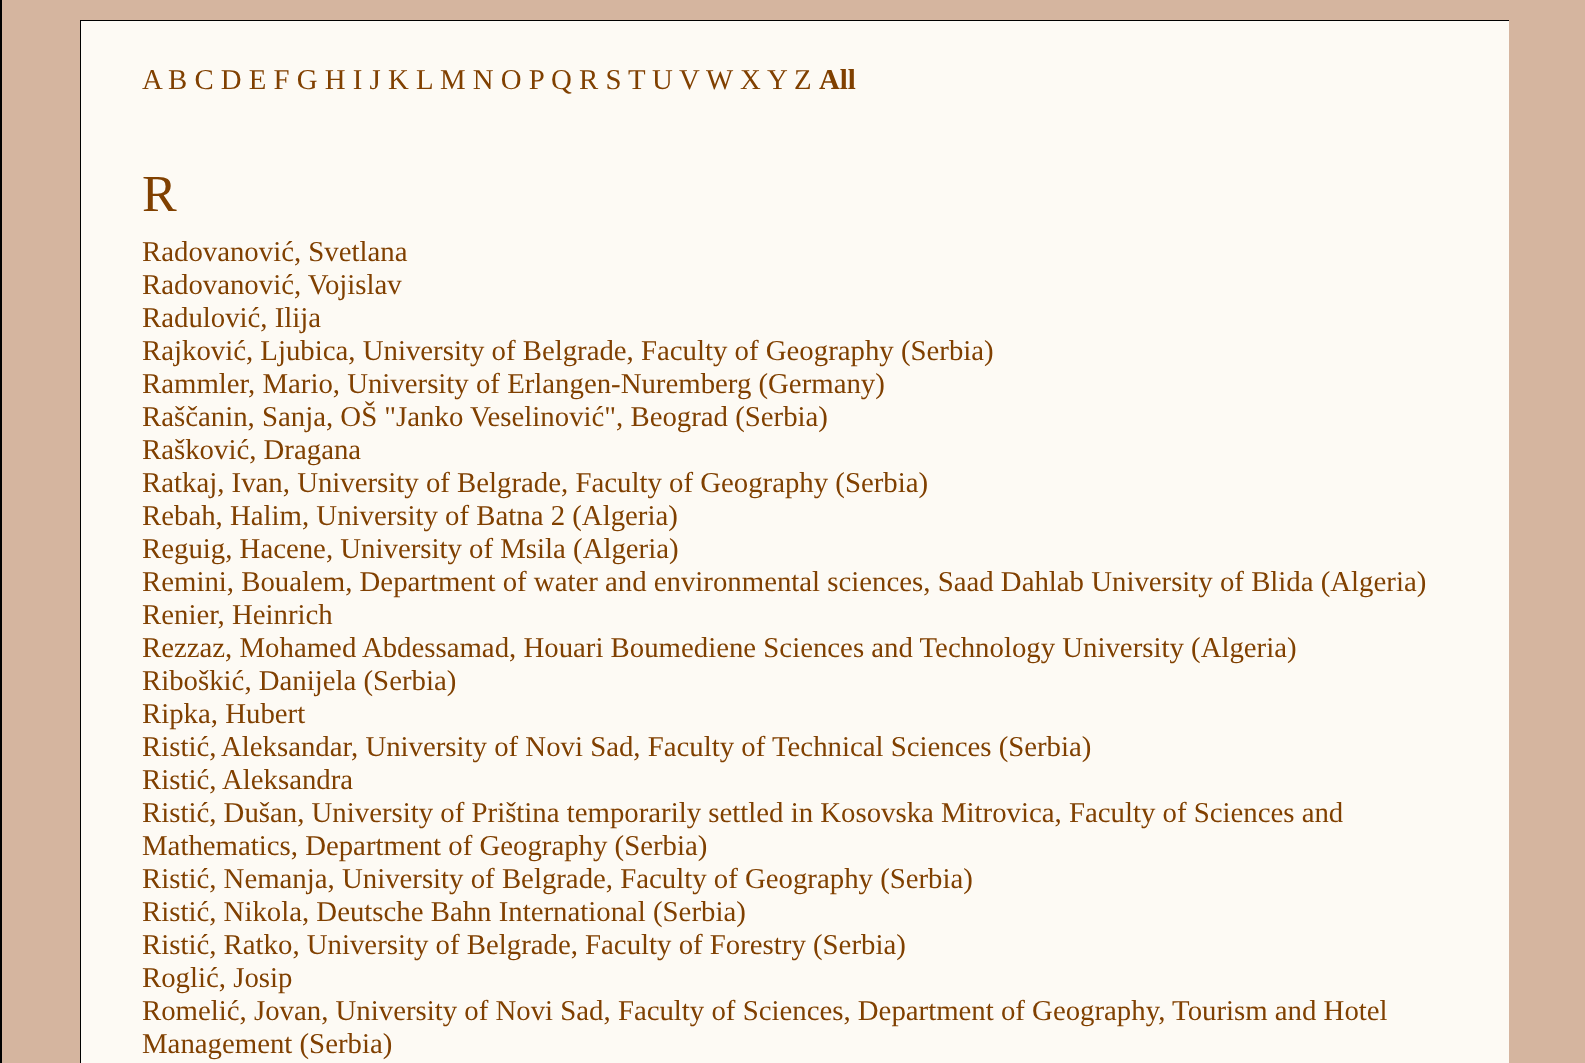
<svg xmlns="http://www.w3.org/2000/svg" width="1585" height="1063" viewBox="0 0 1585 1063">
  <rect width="100%" height="100%" fill="#d5b59f"/>
  <rect x="0" y="0" width="2" height="1063" fill="#000000"/>
  <rect x="80" y="20" width="1429" height="1" fill="#000000"/>
  <rect x="80" y="20" width="2" height="1043" fill="#000000"/>
  <rect x="81" y="21" width="1428" height="1042" fill="#fdfaf4"/>
  <text x="142" y="89" font-family="Liberation Serif" font-size="28.8" fill="#804000">A</text>
  <text x="168" y="89" font-family="Liberation Serif" font-size="28.8" fill="#804000">B C D E F G H I J K L</text>
  <text x="440" y="89" font-family="Liberation Serif" font-size="28.8" fill="#804000">M N O P</text>
  <text x="551" y="89" font-family="Liberation Serif" font-size="28.8" fill="#804000">Q R S</text>
  <text x="628" y="89" font-family="Liberation Serif" font-size="28.8" fill="#804000">T</text>
  <text x="652" y="89" font-family="Liberation Serif" font-size="28.8" fill="#804000">U</text>
  <text x="679" y="89" font-family="Liberation Serif" font-size="28.8" fill="#804000">V</text>
  <text x="706" y="89" font-family="Liberation Serif" font-size="28.8" fill="#804000">W</text>
  <text x="740" y="89" font-family="Liberation Serif" font-size="28.8" fill="#804000">X</text>
  <text x="767" y="89" font-family="Liberation Serif" font-size="28.8" fill="#804000">Y</text>
  <text x="794" y="89" font-family="Liberation Serif" font-size="28.8" fill="#804000">Z</text>
  <text x="819" y="89" font-family="Liberation Serif" font-size="28.8" font-weight="bold" fill="#804000">All</text>
  <text x="142" y="211" font-family="Liberation Serif" font-size="52" fill="#804000">R</text>
  <text x="142" y="261" font-family="Liberation Serif" font-size="28.8" fill="#804000">Radovanović, Svetlana</text>
  <text x="142" y="294" font-family="Liberation Serif" font-size="28.8" fill="#804000">Radovanović, Vojislav</text>
  <text x="142" y="327" font-family="Liberation Serif" font-size="28.8" fill="#804000">Radulović, Ilija</text>
  <text x="142" y="360" font-family="Liberation Serif" font-size="28.8" fill="#804000">Rajković, Ljubica, University of Belgrade, Faculty of Geography (Serbia)</text>
  <text x="142" y="393" font-family="Liberation Serif" font-size="28.8" fill="#804000">Rammler, Mario, University of Erlangen-Nuremberg (Germany)</text>
  <text x="142" y="426" font-family="Liberation Serif" font-size="28.8" fill="#804000">Raščanin, Sanja, OŠ "Janko Veselinović", Beograd (Serbia)</text>
  <text x="142" y="459" font-family="Liberation Serif" font-size="28.8" fill="#804000">Rašković, Dragana</text>
  <text x="142" y="492" font-family="Liberation Serif" font-size="28.8" fill="#804000">Ratkaj, Ivan, University of Belgrade, Faculty of Geography (Serbia)</text>
  <text x="142" y="525" font-family="Liberation Serif" font-size="28.8" fill="#804000">Rebah, Halim, University of Batna 2 (Algeria)</text>
  <text x="142" y="558" font-family="Liberation Serif" font-size="28.8" fill="#804000">Reguig, Hacene, University of Msila (Algeria)</text>
  <text x="142" y="591" font-family="Liberation Serif" font-size="28.8" fill="#804000">Remini, Boualem, Department of water and environmental sciences, Saad Dahlab University of Blida (Algeria)</text>
  <text x="142" y="624" font-family="Liberation Serif" font-size="28.8" fill="#804000">Renier, Heinrich</text>
  <text x="142" y="657" font-family="Liberation Serif" font-size="28.8" fill="#804000">Rezzaz, Mohamed Abdessamad, Houari Boumediene Sciences and Technology University (Algeria)</text>
  <text x="142" y="690" font-family="Liberation Serif" font-size="28.8" fill="#804000">Riboškić, Danijela (Serbia)</text>
  <text x="142" y="723" font-family="Liberation Serif" font-size="28.8" fill="#804000">Ripka, Hubert</text>
  <text x="142" y="756" word-spacing="-1" font-family="Liberation Serif" font-size="28.8" fill="#804000">Ristić, Aleksandar</text>
  <text x="351" y="756" font-family="Liberation Serif" font-size="28.8" fill="#804000">, University of Novi Sad, Faculty of Technical Sciences (Serbia)</text>
  <text x="142" y="789" font-family="Liberation Serif" font-size="28.8" fill="#804000">Ristić, Aleksandra</text>
  <text x="142" y="822" font-family="Liberation Serif" font-size="28.8" fill="#804000">Ristić, Dušan, University of Priština temporarily settled in Kosovska Mitrovica, Faculty of Sciences and</text>
  <text x="142" y="855" font-family="Liberation Serif" font-size="28.8" fill="#804000">Mathematics, Department of Geography (Serbia)</text>
  <text x="142" y="888" font-family="Liberation Serif" font-size="28.8" fill="#804000">Ristić, Nemanja, University of Belgrade, Faculty of Geography (Serbia)</text>
  <text x="142" y="921" font-family="Liberation Serif" font-size="28.8" fill="#804000">Ristić, Nikola, Deutsche Bahn International (Serbia)</text>
  <text x="142" y="954" font-family="Liberation Serif" font-size="28.8" fill="#804000">Ristić, Ratko, University of Belgrade, Faculty of Forestry (Serbia)</text>
  <text x="142" y="987" font-family="Liberation Serif" font-size="28.8" fill="#804000">Roglić, Josip</text>
  <text x="142" y="1020" font-family="Liberation Serif" font-size="28.8" fill="#804000">Romelić, Jovan, University of Novi Sad, Faculty of Sciences, Department of Geography, Tourism and Hotel</text>
  <text x="142" y="1053" font-family="Liberation Serif" font-size="28.8" fill="#804000">Management (Serbia)</text>
</svg>
